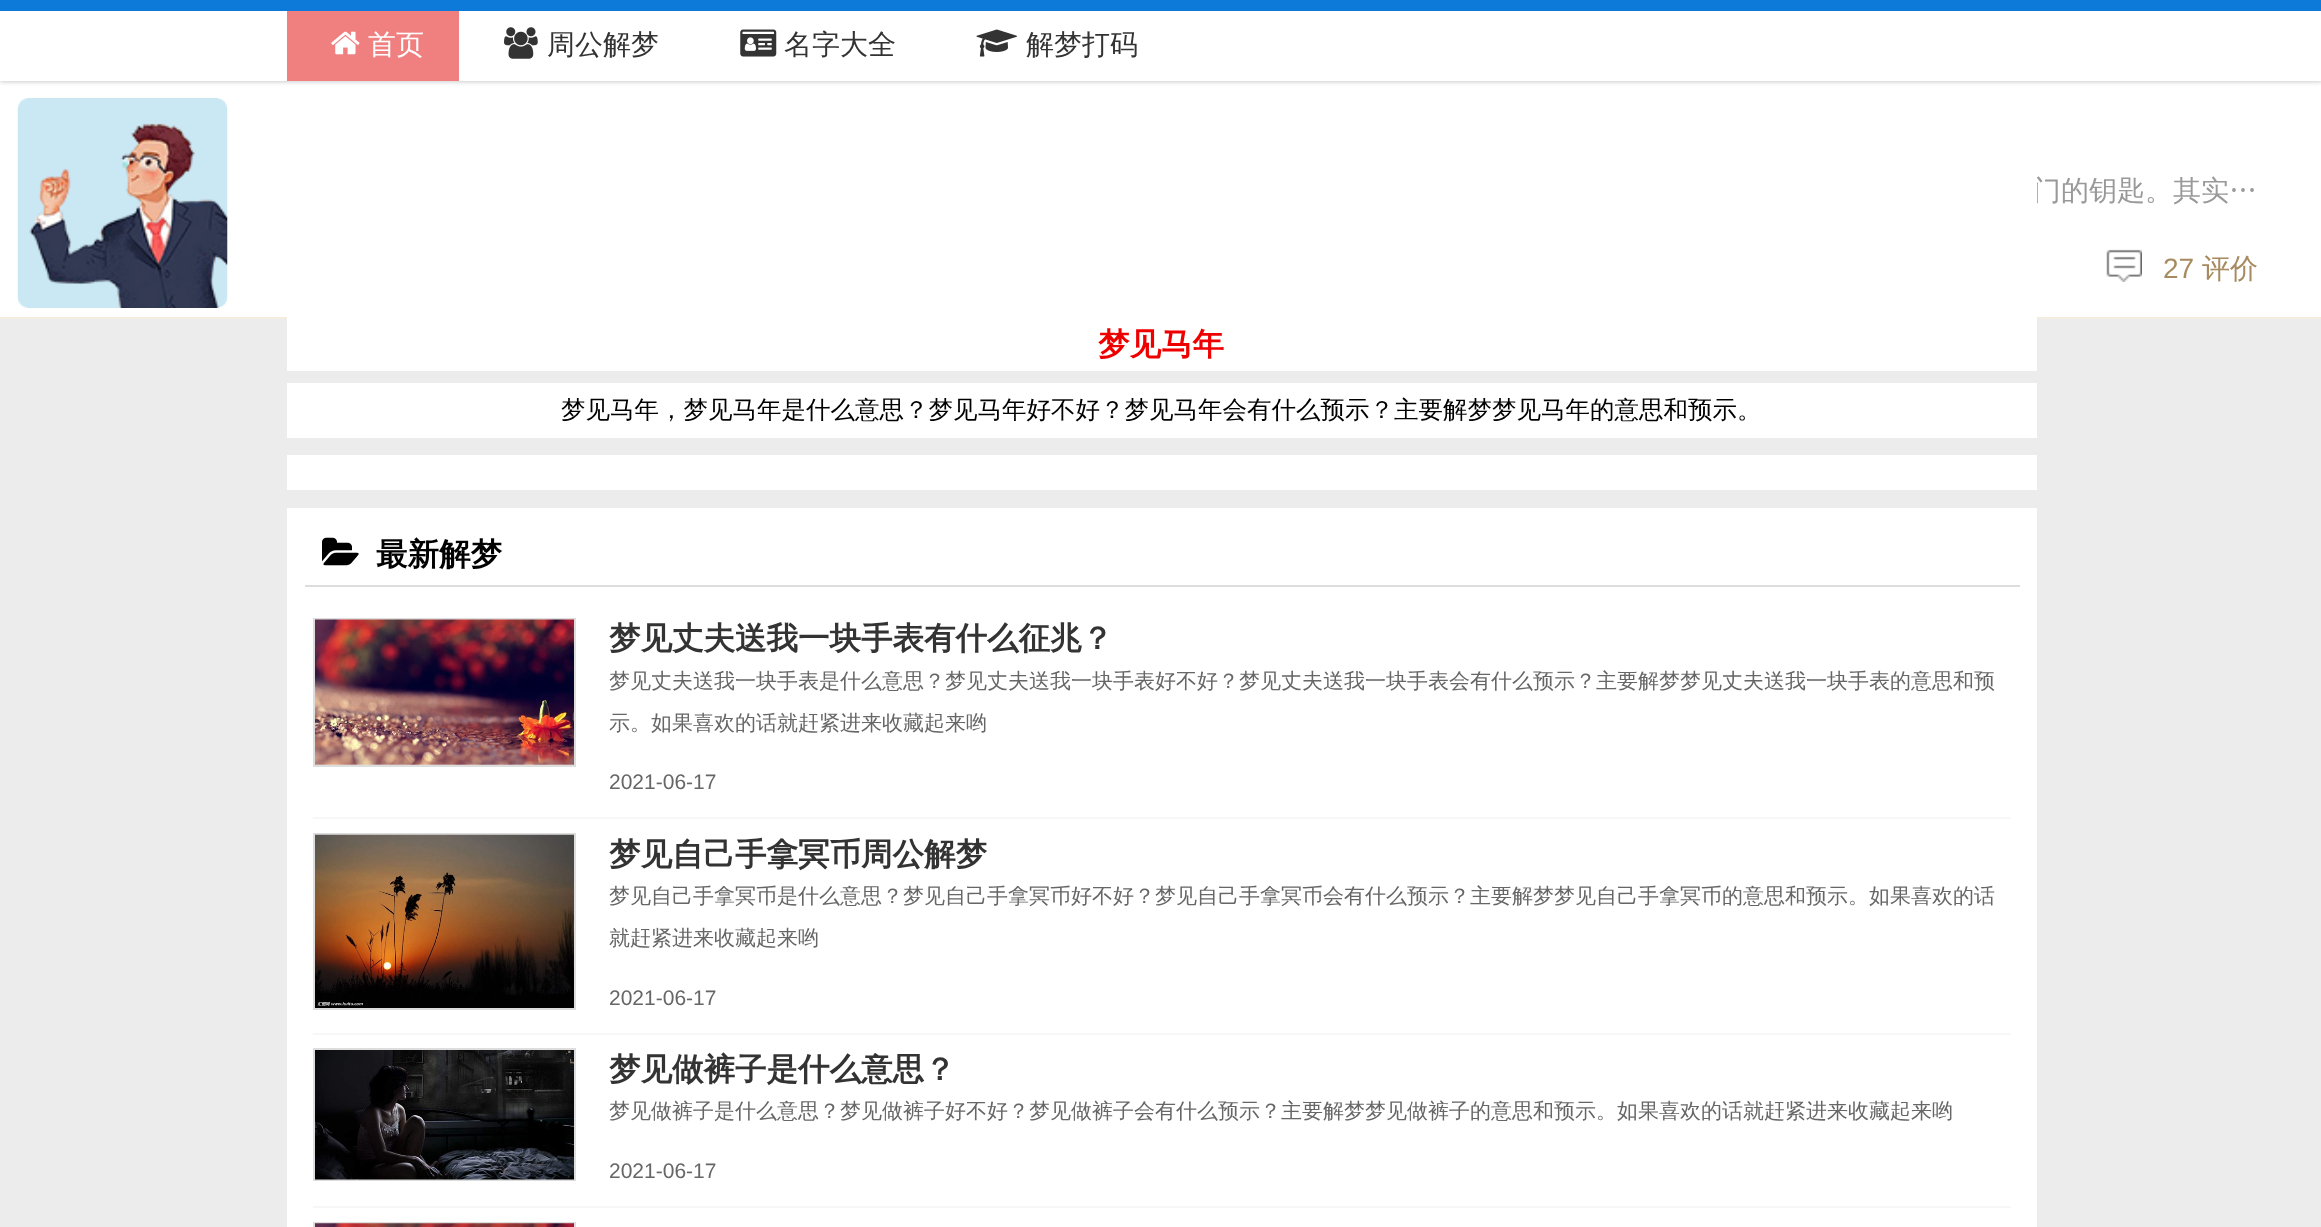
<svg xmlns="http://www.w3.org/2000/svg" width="2321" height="1227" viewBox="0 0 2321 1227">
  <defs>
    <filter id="blur1" x="-50%" y="-200%" width="200%" height="500%"><feGaussianBlur stdDeviation="2"/></filter>
  </defs>
  <rect width="100%" height="100%" fill="#ececec"/>
  <rect x="0" y="81" width="2321" height="236" fill="#ffffff"/>
  <rect x="0" y="-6" width="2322" height="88" fill="#000000" fill-opacity="0.2" filter="url(#blur1)"/>
  <rect x="0" y="11" width="2321" height="70" fill="#ffffff"/>
  <rect x="0" y="0" width="2321" height="11" fill="#0d7ad9"/>
  <rect x="287" y="11" width="172" height="70" fill="#f08080"/>
  <image x="331" y="31" width="29" height="24" href="img1.png"/>
  <text x="368" y="54" font-family="WenQuanYi Zen Hei" font-size="28" font-weight="500" fill="#ffffff">首页</text>
  <image x="504" y="27" width="34" height="32" href="img2.png"/>
  <text x="547" y="54" font-family="WenQuanYi Zen Hei" font-size="28" font-weight="500" fill="#333333">周公解梦</text>
  <image x="740" y="29" width="37" height="28" href="img3.png"/>
  <text x="784" y="54" font-family="WenQuanYi Zen Hei" font-size="28" font-weight="500" fill="#333333">名字大全</text>
  <image x="976" y="29" width="41" height="28" href="img4.png"/>
  <text x="1026" y="54" font-family="WenQuanYi Zen Hei" font-size="28" font-weight="500" fill="#333333">解梦打码</text>
  <rect x="0" y="317" width="2321" height="2" fill="#f3ecdf"/>
  <image x="17" y="98" width="211" height="210" href="img5.png"/>
  <text x="2033" y="200" font-family="WenQuanYi Zen Hei" font-size="28" font-weight="500" fill="#999999">门的钥匙。其实…</text>
  <image x="2106" y="249" width="36" height="33" href="img6.png"/>
  <text x="2163" y="278" font-family="Liberation Sans" font-size="28" fill="#a78a5f">27</text>
  <text x="2202" y="278" font-family="WenQuanYi Zen Hei" font-size="28" font-weight="500" fill="#a78a5f">评价</text>
  <rect x="287" y="182" width="1750" height="189" fill="#ffffff"/>
  <text x="1098" y="355" font-family="WenQuanYi Zen Hei" font-size="31.5" font-weight="bold" fill="#ee0000">梦见马年</text>
  <rect x="287" y="383" width="1750" height="55" fill="#ffffff"/>
  <text x="561" y="418" font-family="WenQuanYi Zen Hei" font-size="24.5" font-weight="500" fill="#000000">梦见马年，梦见马年是什么意思？梦见马年好不好？梦见马年会有什么预示？主要解梦梦见马年的意思和预示。</text>
  <rect x="287" y="455" width="1750" height="35" fill="#ffffff"/>
  <rect x="287" y="508" width="1750" height="719" fill="#ffffff"/>
  <rect x="305" y="585" width="1715" height="2" fill="#dddddd"/>
  <image x="322" y="537" width="37" height="29" href="img7.png"/>
  <text x="376" y="565" font-family="WenQuanYi Zen Hei" font-size="31.5" font-weight="bold" fill="#000000">最新解梦</text>
  <rect x="313" y="817" width="1698" height="2" fill="#f7f7f7"/>
  <rect x="314" y="619" width="261" height="147" fill="none" stroke="#dddddd" stroke-width="2"/>
  <image x="315" y="619" width="259" height="146" href="img8.png"/>
  <text x="609" y="649" font-family="WenQuanYi Zen Hei" font-size="31.5" font-weight="bold" fill="#333333">梦见丈夫送我一块手表有什么征兆？</text>
  <text x="609" y="688" font-family="WenQuanYi Zen Hei" font-size="21" font-weight="500" fill="#666666">梦见丈夫送我一块手表是什么意思？梦见丈夫送我一块手表好不好？梦见丈夫送我一块手表会有什么预示？主要解梦梦见丈夫送我一块手表的意思和预</text>
  <text x="609" y="730" font-family="WenQuanYi Zen Hei" font-size="21" font-weight="500" fill="#666666">示。如果喜欢的话就赶紧进来收藏起来哟</text>
  <text x="609" y="789" font-family="Liberation Sans" font-size="21" fill="#666666">2021-06-17</text>
  <rect x="313" y="1033" width="1698" height="2" fill="#f7f7f7"/>
  <rect x="314" y="834" width="261" height="175" fill="none" stroke="#dddddd" stroke-width="2"/>
  <image x="315" y="834" width="259" height="174" href="img9.png"/>
  <text x="609" y="865" font-family="WenQuanYi Zen Hei" font-size="31.5" font-weight="bold" fill="#333333">梦见自己手拿冥币周公解梦</text>
  <text x="609" y="903" font-family="WenQuanYi Zen Hei" font-size="21" font-weight="500" fill="#666666">梦见自己手拿冥币是什么意思？梦见自己手拿冥币好不好？梦见自己手拿冥币会有什么预示？主要解梦梦见自己手拿冥币的意思和预示。如果喜欢的话</text>
  <text x="609" y="945" font-family="WenQuanYi Zen Hei" font-size="21" font-weight="500" fill="#666666">就赶紧进来收藏起来哟</text>
  <text x="609" y="1005" font-family="Liberation Sans" font-size="21" fill="#666666">2021-06-17</text>
  <rect x="313" y="1206" width="1698" height="2" fill="#f7f7f7"/>
  <rect x="314" y="1049" width="261" height="131" fill="none" stroke="#dddddd" stroke-width="2"/>
  <image x="315" y="1050" width="259" height="130" href="img10.png"/>
  <text x="609" y="1080" font-family="WenQuanYi Zen Hei" font-size="31.5" font-weight="bold" fill="#333333">梦见做裤子是什么意思？</text>
  <text x="609" y="1118" font-family="WenQuanYi Zen Hei" font-size="21" font-weight="500" fill="#666666">梦见做裤子是什么意思？梦见做裤子好不好？梦见做裤子会有什么预示？主要解梦梦见做裤子的意思和预示。如果喜欢的话就赶紧进来收藏起来哟</text>
  <text x="609" y="1178" font-family="Liberation Sans" font-size="21" fill="#666666">2021-06-17</text>
  <rect x="314" y="1223" width="261" height="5" fill="none" stroke="#dddddd" stroke-width="2"/>
  <image x="315" y="1223" width="259" height="4" href="img11.png"/>
</svg>
